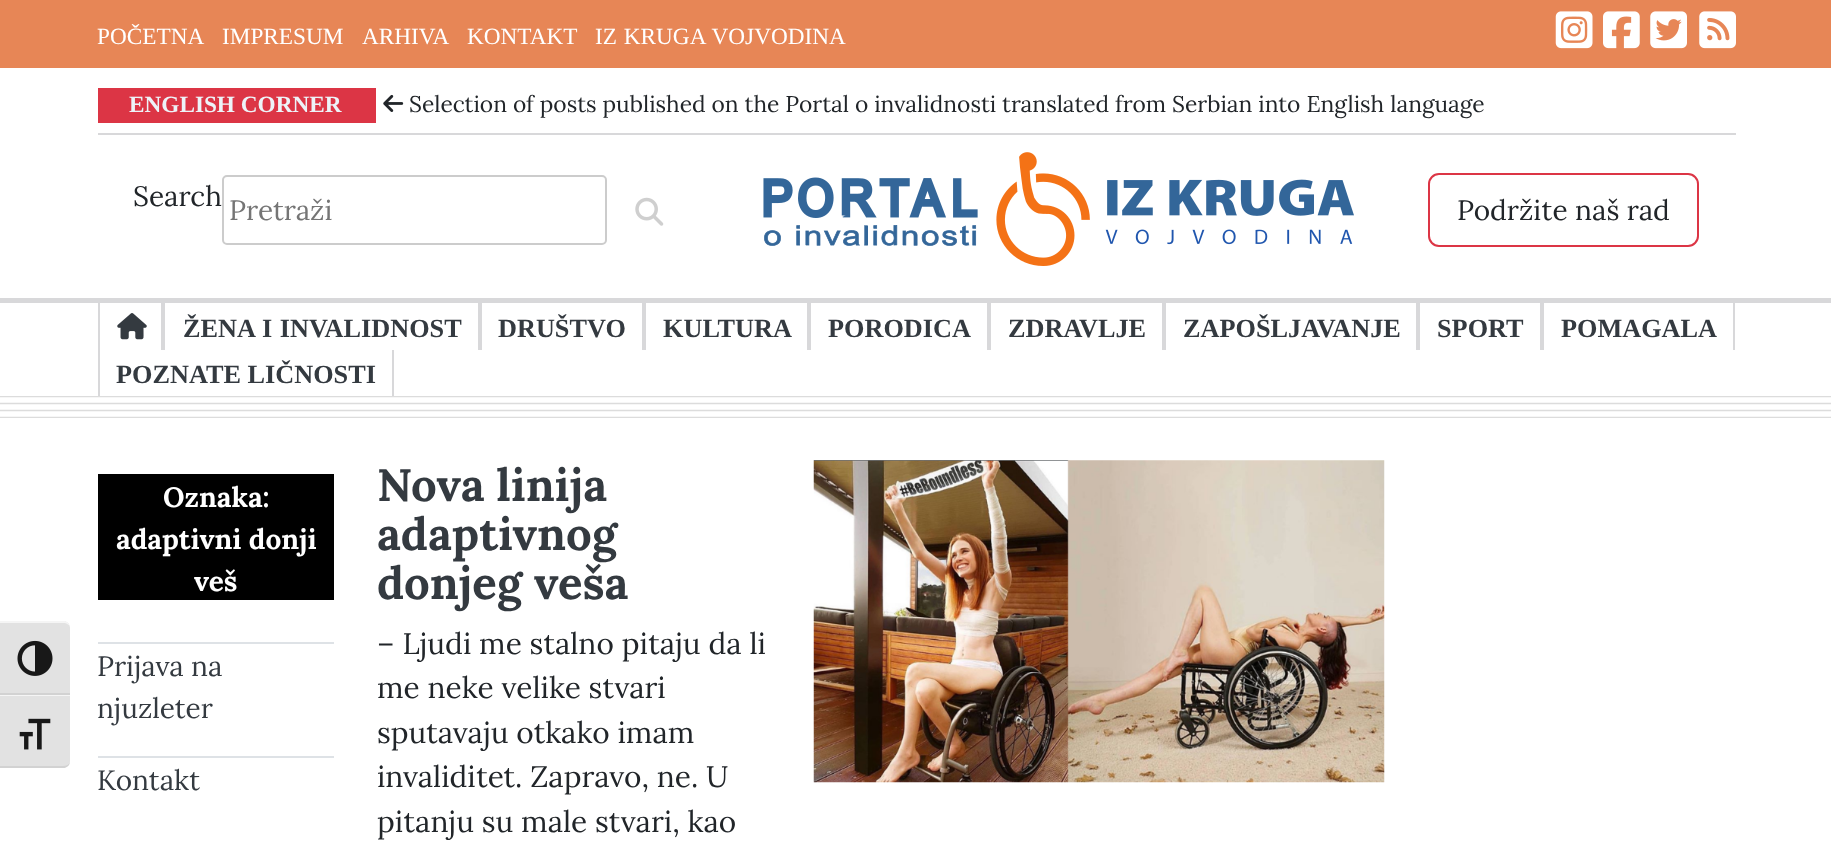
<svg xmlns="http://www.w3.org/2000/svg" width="1831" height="849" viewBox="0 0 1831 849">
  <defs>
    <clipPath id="clip1"><rect x="0" y="396" width="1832" height="22"/></clipPath>
  </defs>
  <rect width="100%" height="100%" fill="#ffffff"/>
  <path d="M0 621H63C67 621 70 624 70 628V695H0Z" fill="#e2e2e2"/>
  <path d="M0 623H63C67 623 70 625 70 628C70 625 68 622 65 621H0Z" fill="#f5f5f5"/>
  <rect x="0" y="693" width="70" height="2" fill="#d2d2d2"/>
  <image x="17" y="640" width="36" height="36" href="img1.png"/>
  <path d="M0 695H70V761C70 765 67 768 63 768H0Z" fill="#e2e2e2"/>
  <rect x="0" y="695" width="70" height="1" fill="#f5f5f5"/>
  <path d="M0 766V768H63C67 768 70 765 70 761C70 764 67 766 63 766Z" fill="#d2d2d2"/>
  <image x="19" y="718" width="32" height="32" href="img2.png"/>
  <rect x="0" y="0" width="1831" height="68" fill="#e78656"/>
  <text x="97" y="44" font-family="Liberation Serif" font-size="23.25" fill="#ffffff">POČETNA</text>
  <text x="222" y="44" font-family="Liberation Serif" font-size="23.25" fill="#ffffff">IMPRESUM</text>
  <text x="362" y="44" font-family="Liberation Serif" font-size="23.25" fill="#ffffff">ARHIVA</text>
  <text x="467" y="44" font-family="Liberation Serif" font-size="23.25" fill="#ffffff">KONTAKT</text>
  <text x="595" y="44" word-spacing="1" font-family="Liberation Serif" font-size="23.25" fill="#ffffff">IZ KRUGA VOJVODINA</text>
  <image x="1555" y="11" width="38" height="38" href="img3.png"/>
  <image x="1603" y="11" width="37" height="38" href="img4.png"/>
  <image x="1650" y="11" width="37" height="38" href="img5.png"/>
  <image x="1699" y="11" width="37" height="38" href="img6.png"/>
  <rect x="98" y="133" width="1638" height="2" fill="#d8d8da"/>
  <rect x="98" y="88" width="278" height="35" fill="#dc3545"/>
  <text x="129" y="112" font-family="Liberation Serif" font-size="23.25" font-weight="bold" fill="#edf3f8">ENGLISH CORNER</text>
  <image x="383" y="94" width="21" height="18" href="img7.png"/>
  <text x="409" y="112" font-family="Lora" font-size="22.75" fill="#212529">Selection of posts published on the Portal o invalidnosti translated from Serbian into English language</text>
  <text x="133" y="206" font-family="Lora" font-size="28" fill="#212529">Search</text>
  <rect x="223" y="176" width="383" height="68" rx="4" fill="none" stroke="#cccccc" stroke-width="2"/>
  <text x="229" y="220" font-family="Lora" font-size="28" fill="#757575">Pretraži</text>
  <image x="635" y="197" width="29" height="29" href="img8.png"/>
  <image x="763" y="152" width="591" height="114" href="img9.png"/>
  <rect x="1429" y="174" width="269" height="72" rx="10" fill="none" stroke="#dc3545" stroke-width="2"/>
  <text x="1457" y="220" font-family="Lora" font-size="28" fill="#212529">Podržite naš rad</text>
  <rect x="0" y="298" width="1831" height="5" fill="#d8d8da"/>
  <rect x="161" y="303" width="4" height="47" fill="#d8d8da"/>
  <rect x="98" y="303" width="2" height="93" fill="#d8d8da"/>
  <image x="117" y="313" width="30" height="27" href="img10.png"/>
  <rect x="478" y="303" width="4" height="47" fill="#d8d8da"/>
  <text x="183" y="337" word-spacing="1" font-family="Liberation Serif" font-size="26.25" font-weight="bold" fill="#343a40">ŽENA I INVALIDNOST</text>
  <rect x="642" y="303" width="4" height="47" fill="#d8d8da"/>
  <text x="498" y="337" font-family="Liberation Serif" font-size="26.25" font-weight="bold" fill="#343a40">DRUŠTVO</text>
  <rect x="807" y="303" width="4" height="47" fill="#d8d8da"/>
  <text x="663" y="337" font-family="Liberation Serif" font-size="26.25" font-weight="bold" fill="#343a40">KULTURA</text>
  <rect x="987" y="303" width="4" height="47" fill="#d8d8da"/>
  <text x="828" y="337" font-family="Liberation Serif" font-size="26.25" font-weight="bold" fill="#343a40">PORODICA</text>
  <rect x="1162" y="303" width="4" height="47" fill="#d8d8da"/>
  <text x="1008" y="337" font-family="Liberation Serif" font-size="26.25" font-weight="bold" fill="#343a40">ZDRAVLJE</text>
  <rect x="1416" y="303" width="4" height="47" fill="#d8d8da"/>
  <text x="1183" y="337" font-family="Liberation Serif" font-size="26.25" font-weight="bold" fill="#343a40">ZAPOŠLJAVANJE</text>
  <rect x="1540" y="303" width="4" height="47" fill="#d8d8da"/>
  <text x="1437" y="337" font-family="Liberation Serif" font-size="26.25" font-weight="bold" fill="#343a40">SPORT</text>
  <rect x="1733" y="303" width="2" height="47" fill="#d8d8da"/>
  <text x="1561" y="337" font-family="Liberation Serif" font-size="26.25" font-weight="bold" fill="#343a40">POMAGALA</text>
  <rect x="392" y="350" width="2" height="46" fill="#d8d8da"/>
  <text x="116" y="383" font-family="Liberation Serif" font-size="26.25" font-weight="bold" fill="#343a40">POZNATE LIČNOSTI</text>
  <g clip-path="url(#clip1)">
    <path d="M0 396.5H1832" fill="none" stroke="#dcdcdc" stroke-width="1.6"/>
  </g>
  <path d="M0 403.5H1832" fill="none" stroke="#dcdcdc" stroke-width="1.6"/>
  <path d="M0 410.5H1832" fill="none" stroke="#dcdcdc" stroke-width="1.6"/>
  <g clip-path="url(#clip1)">
    <path d="M0 417.5H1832" fill="none" stroke="#dcdcdc" stroke-width="1.6"/>
  </g>
  <rect x="98" y="474" width="236" height="126" fill="#000000"/>
  <text x="163" y="507" font-family="Lora" font-size="28" font-weight="bold" fill="#ffffff">Oznaka:</text>
  <text x="116" y="549" font-family="Lora" font-size="28" font-weight="bold" fill="#ffffff">adaptivni donji</text>
  <text x="194" y="591" font-family="Lora" font-size="28" font-weight="bold" fill="#ffffff">veš</text>
  <rect x="98" y="642" width="236" height="2" fill="#dee2e6"/>
  <text x="97" y="676" font-family="Lora" font-size="28" fill="#343a40">Prijava na</text>
  <text x="97" y="718" font-family="Lora" font-size="28" fill="#343a40">njuzleter</text>
  <rect x="98" y="756" width="236" height="2" fill="#dee2e6"/>
  <text x="97" y="790" font-family="Lora" font-size="28" fill="#343a40">Kontakt</text>
  <text x="377" y="501" font-family="Lora" font-size="45.5" font-weight="bold" fill="#343a40">Nova linija</text>
  <text x="377" y="550" font-family="Lora" font-size="45.5" font-weight="bold" fill="#343a40">adaptivnog</text>
  <text x="377" y="599" font-family="Lora" font-size="45.5" font-weight="bold" fill="#343a40">donjeg veša</text>
  <text x="377" y="654" font-family="Lora" font-size="29.75" fill="#212529">– Ljudi me stalno pitaju da li</text>
  <text x="377" y="698" font-family="Lora" font-size="29.75" fill="#212529">me neke velike stvari</text>
  <text x="377" y="743" font-family="Lora" font-size="29.75" fill="#212529">sputavaju otkako imam</text>
  <text x="377" y="787" font-family="Lora" font-size="29.75" fill="#212529">invaliditet. Zapravo, ne. U</text>
  <text x="377" y="832" font-family="Lora" font-size="29.75" fill="#212529">pitanju su male stvari, kao</text>
  <image x="813" y="460" width="572" height="323" href="img11.png"/>
</svg>
